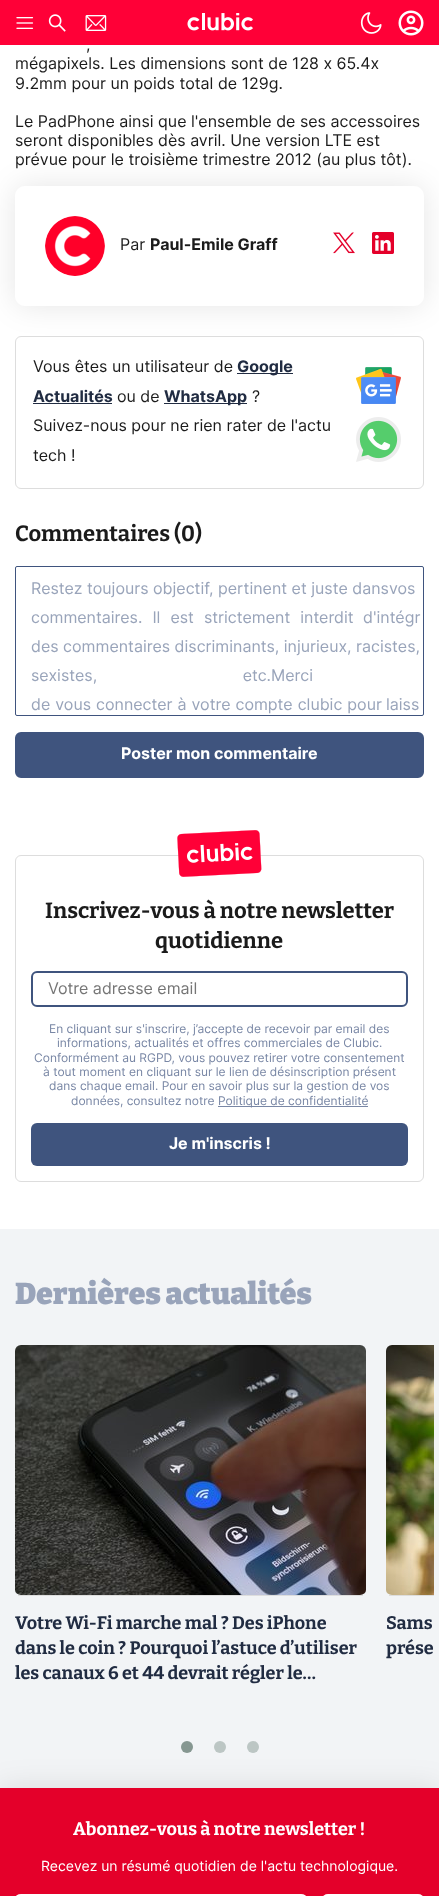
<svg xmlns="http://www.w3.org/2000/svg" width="439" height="1896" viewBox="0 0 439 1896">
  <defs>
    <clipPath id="clip1"><path d="M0 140H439V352H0ZM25 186H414C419.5 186 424 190.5 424 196V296C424 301.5 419.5 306 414 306H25C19.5 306 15 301.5 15 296V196C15 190.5 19.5 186 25 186Z" clip-rule="evenodd"/></clipPath>
    <filter id="blur1" x="-50%" y="-200%" width="200%" height="500%"><feGaussianBlur stdDeviation="15"/></filter>
  </defs>
  <rect width="100%" height="100%" fill="#ffffff"/>
  <rect x="0" y="0" width="439" height="45" fill="#ff0037"/>
  <image x="16" y="17" width="18" height="12" href="img1.png"/>
  <image x="48" y="14" width="18" height="18" href="img2.png"/>
  <image x="85" y="15" width="22" height="16" href="img3.png"/>
  <image x="187" y="13" width="66" height="18" href="img4.png"/>
  <image x="360" y="12" width="22" height="22" href="img5.png"/>
  <image x="398" y="10" width="26" height="26" href="img6.png"/>
  <text x="86" y="50" font-family="Inter" font-size="16" fill="#1b1b1b">,</text>
  <text x="15" y="69" font-family="Inter" font-size="16" fill="#1b1b1b">mégapixels. Les dimensions sont de 128 x 65.4x</text>
  <text x="15" y="89" font-family="Inter" font-size="16" fill="#1b1b1b">9.2mm pour un poids total de 129g.</text>
  <text x="15" y="127" font-family="Inter" font-size="16" fill="#1b1b1b">Le PadPhone ainsi que l'ensemble de ses accessoires</text>
  <text x="15" y="146" font-family="Inter" font-size="16" fill="#1b1b1b">seront disponibles dès avril. Une version LTE est</text>
  <text x="15" y="165" font-family="Inter" font-size="16" fill="#1b1b1b">prévue pour le troisième trimestre 2012 (au plus tôt).</text>
  <rect x="15.5" y="336.5" width="408" height="152" rx="5.5" fill="none" stroke="#dddddd"/>
  <g clip-path="url(#clip1)">
    <rect x="15" y="186" width="409" height="120" rx="10" fill="#000000" fill-opacity="0.1" filter="url(#blur1)"/>
  </g>
  <image x="45" y="216" width="60" height="60" href="img7.png"/>
  <text x="120" y="250" font-family="Inter" font-size="16" fill="#1b1b1b">Par</text>
  <text x="150" y="250" font-family="Inter" font-size="16" font-weight="bold" fill="#1b1b1b">Paul-Emile Graff</text>
  <image x="333" y="232" width="22" height="22" href="img8.png"/>
  <image x="372" y="232" width="22" height="22" href="img9.png"/>
  <text x="33" y="372" font-family="Inter" font-size="16" fill="#1b1b1b">Vous êtes un utilisateur de</text>
  <rect x="237" y="373" width="56" height="1" fill="#212c42"/>
  <text x="237" y="372" font-family="Inter" font-size="16" font-weight="bold" fill="#212c42">Google</text>
  <text x="33" y="402" font-family="Inter" font-size="16" font-weight="bold" fill="#212c42">Actualités</text>
  <rect x="33" y="403" width="79" height="1" fill="#212c42"/>
  <text x="117" y="402" font-family="Inter" font-size="16" fill="#1b1b1b">ou de</text>
  <rect x="164" y="403" width="83" height="1" fill="#212c42"/>
  <text x="164" y="402" font-family="Inter" font-size="16" font-weight="bold" fill="#212c42">WhatsApp</text>
  <text x="252" y="402" font-family="Inter" font-size="16" fill="#1b1b1b">?</text>
  <text x="33" y="431" font-family="Inter" font-size="16" fill="#1b1b1b">Suivez-nous pour ne rien rater de l'actu</text>
  <text x="33" y="461" font-family="Inter" font-size="16" fill="#1b1b1b">tech !</text>
  <image x="356" y="367" width="45" height="37" href="img10.png"/>
  <image x="356" y="417" width="45" height="45" href="img11.png"/>
  <text x="15" y="541" font-family="Bitter" font-size="22" font-weight="100" fill="#1b1b1b">Commentaires (0)</text>
  <rect x="15.5" y="566.5" width="408" height="149" rx="1.5" fill="none" stroke="#3f547e"/>
  <text x="31" y="594" font-family="Inter" font-size="16" fill="#99a4ba">Restez toujours objectif, pertinent et juste dansvos</text>
  <text x="31" y="623" word-spacing="5.5" font-family="Inter" font-size="16" fill="#99a4ba">commentaires. Il est strictement interdit</text>
  <text x="363" y="623" font-family="Inter" font-size="16" fill="#99a4ba">d'intégr</text>
  <text x="31" y="652" font-family="Inter" font-size="16" fill="#99a4ba">des commentaires discriminants, injurieux, racistes,</text>
  <text x="31" y="681" word-spacing="141" font-family="Inter" font-size="16" fill="#99a4ba">sexistes, etc.</text>
  <text x="271" y="681" font-family="Inter" font-size="16" fill="#99a4ba">Merci</text>
  <text x="31" y="710" word-spacing="0.5" font-family="Inter" font-size="16" fill="#99a4ba">de vous connecter à votre compte clubic pour</text>
  <text x="386" y="710" font-family="Inter" font-size="16" fill="#99a4ba">laiss</text>
  <rect x="16" y="733" width="407" height="44" rx="5" fill="#3f547e" stroke="#3f547e" stroke-width="2"/>
  <text x="121" y="759" font-family="Inter" font-size="16" font-weight="bold" fill="#ffffff">Poster mon commentaire</text>
  <rect x="15.5" y="855.5" width="408" height="326" rx="5.5" fill="none" stroke="#dddddd"/>
  <image x="177" y="830" width="85" height="47" href="img12.png"/>
  <text x="45" y="918" font-family="Bitter" font-size="22" font-weight="100" fill="#1b1b1b">Inscrivez-vous à notre newsletter</text>
  <text x="155" y="948" font-family="Bitter" font-size="22" font-weight="100" fill="#1b1b1b">quotidienne</text>
  <rect x="32" y="972" width="375" height="34" rx="5" fill="none" stroke="#3f547e" stroke-width="2"/>
  <text x="48" y="994" font-family="Inter" font-size="16" fill="#757575">Votre adresse email</text>
  <text x="49" y="1033" font-family="Inter" font-size="12" fill="#7987a5">En cliquant sur s'inscrire, j’accepte de recevoir par email des</text>
  <text x="57" y="1047" font-family="Inter" font-size="12" fill="#7987a5">informations, actualités et offres commerciales de Clubic.</text>
  <text x="34" y="1062" font-family="Inter" font-size="12" fill="#7987a5">Conformément au RGPD, vous pouvez retirer votre consentement</text>
  <text x="43" y="1076" font-family="Inter" font-size="12" fill="#7987a5">à tout moment en cliquant sur le lien de désinscription présent</text>
  <text x="49" y="1090" font-family="Inter" font-size="12" fill="#7987a5">dans chaque email. Pour en savoir plus sur la gestion de vos</text>
  <text x="71" y="1105" font-family="Inter" font-size="12" fill="#7987a5">données, consultez notre</text>
  <rect x="218" y="1106" width="150" height="1" fill="#7987a5"/>
  <text x="218" y="1105" font-family="Inter" font-size="12" fill="#7987a5">Politique de confidentialité</text>
  <rect x="31" y="1123" width="377" height="43" rx="6" fill="#3f547e"/>
  <text x="169" y="1149" font-family="Inter" font-size="16" font-weight="bold" fill="#ffffff">Je m'inscris !</text>
  <rect x="0" y="1229" width="439" height="559" fill="#f2f4f6"/>
  <text x="15" y="1304" font-family="'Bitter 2'" font-size="30" font-weight="100" fill="#99a4ba">Dernières actualités</text>
  <rect x="18" y="1595" width="345" height="1" fill="#dddddd"/>
  <image x="15" y="1345" width="351" height="250" href="img13.png"/>
  <text x="15" y="1629" font-family="Bitter" font-size="18" font-weight="100" fill="#212c42">Votre Wi-Fi marche mal ? Des iPhone</text>
  <text x="15" y="1654" font-family="Bitter" font-size="18" font-weight="100" fill="#212c42">dans le coin ? Pourquoi l’astuce d’utiliser</text>
  <text x="15" y="1679" font-family="Bitter" font-size="18" font-weight="100" fill="#212c42">les canaux 6 et 44 devrait régler le…</text>
  <rect x="389" y="1595" width="45" height="1" fill="#dddddd"/>
  <image x="386" y="1345" width="48" height="250" href="img14.png"/>
  <text x="386" y="1629" font-family="Bitter" font-size="18" font-weight="100" fill="#212c42">Sams</text>
  <text x="386" y="1654" font-family="Bitter" font-size="18" font-weight="100" fill="#212c42">prése</text>
  <circle cx="187" cy="1747" r="6" fill="#869791"/>
  <circle cx="220" cy="1747" r="6" fill="#bcc6c4"/>
  <circle cx="253" cy="1747" r="6" fill="#bcc6c4"/>
  <rect x="0" y="1788" width="439" height="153" fill="#000000" fill-opacity="0.1" filter="url(#blur1)"/>
  <rect x="0" y="1788" width="439" height="108" fill="#e4002a"/>
  <text x="73" y="1835" font-family="Bitter" font-size="18" font-weight="100" fill="#ffffff">Abonnez-vous à notre newsletter !</text>
  <text x="41" y="1871" font-family="Inter" font-size="14" fill="#ffffff">Recevez un résumé quotidien de l'actu technologique.</text>
  <rect x="15" y="1894" width="292" height="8" rx="6" fill="#ffffff"/>
  <rect x="323" y="1895" width="100" height="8" rx="5" fill="none" stroke="#ffffff" stroke-width="2"/>
</svg>
